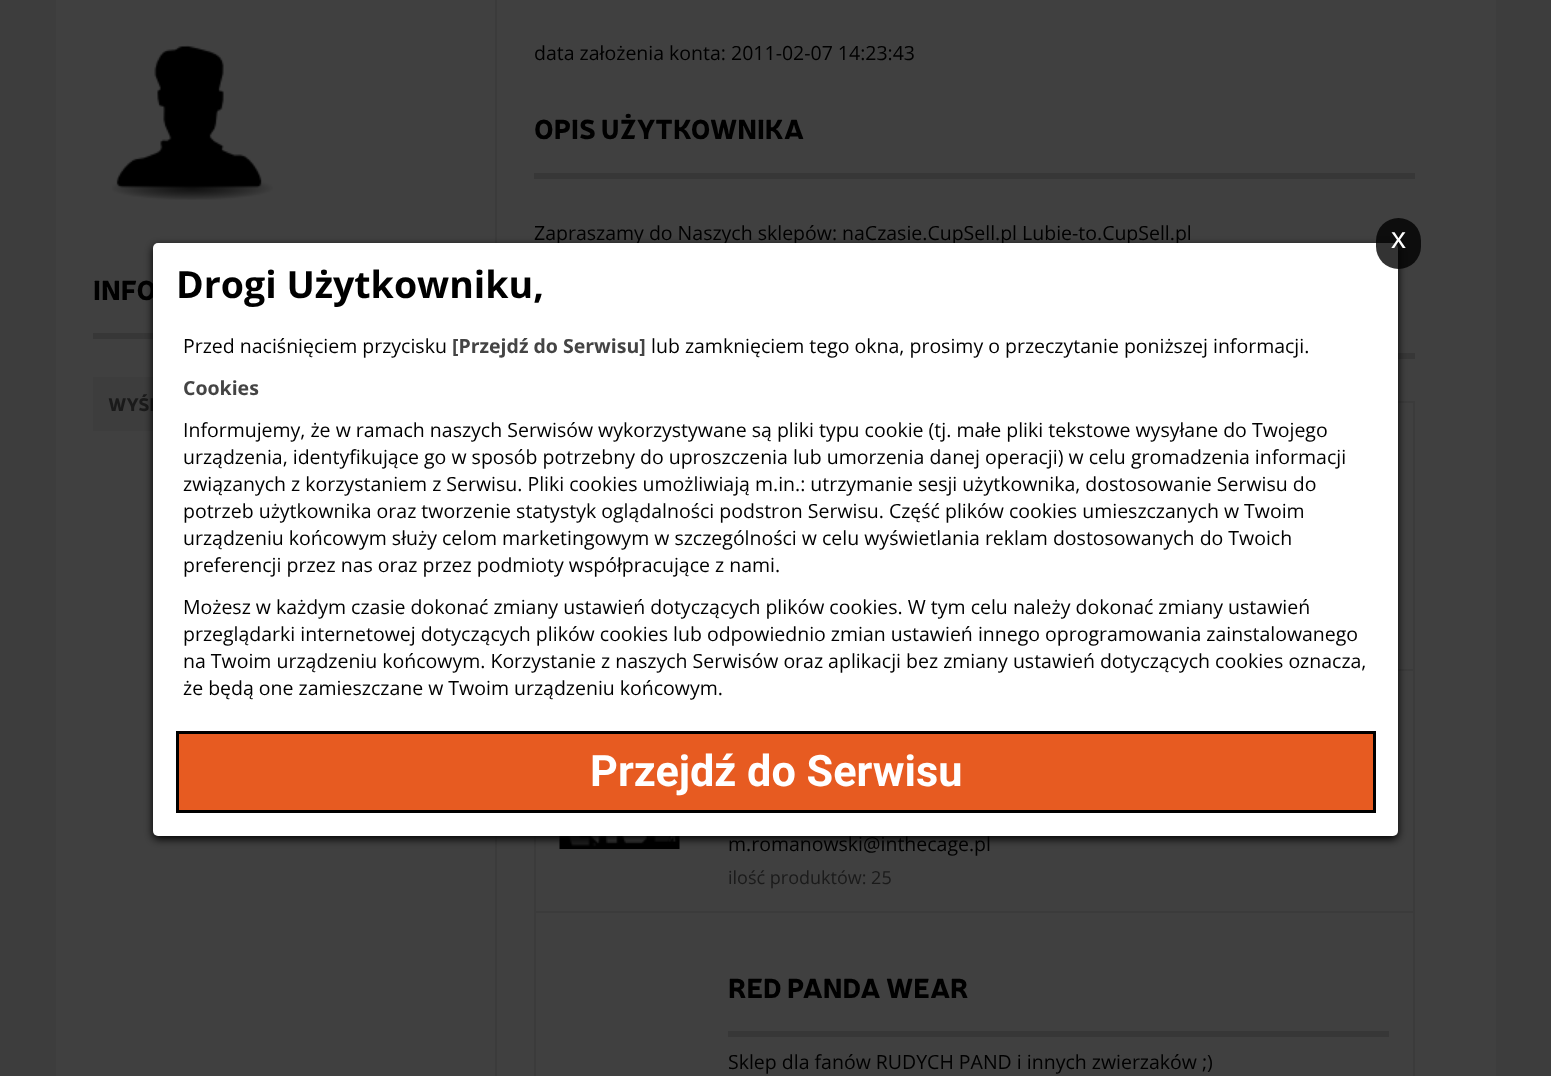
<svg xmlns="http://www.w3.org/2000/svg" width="1551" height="1076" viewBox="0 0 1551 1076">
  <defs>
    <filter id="blur1" x="-50%" y="-200%" width="200%" height="500%"><feGaussianBlur stdDeviation="4.5"/></filter>
  </defs>
  <rect width="100%" height="100%" fill="#3d3d3d"/>
  <rect x="56" y="0" width="1440" height="1076" fill="#404040"/>
  <image x="112" y="45" width="161" height="155" href="img1.png"/>
  <rect x="93" y="333" width="60" height="6" fill="#373737"/>
  <text x="93" y="300" font-family="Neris" font-size="27" font-weight="900" fill="#000000">INFO</text>
  <rect x="93" y="377" width="60" height="54" fill="#3d3d3d"/>
  <text x="108" y="411" font-family="Neris" font-size="18" font-weight="900" fill="#1a1a1a">WYŚL</text>
  <rect x="495" y="0" width="2" height="1076" fill="#3b3b3b"/>
  <text x="534" y="60" font-family="Open Sans" font-size="19.5" fill="#000000">data założenia konta: 2011-02-07 14:23:43</text>
  <rect x="534" y="173" width="881" height="6" fill="#373737"/>
  <text x="534" y="139" font-family="Neris" font-size="27" font-weight="900" fill="#000000">OPIS UŻYTKOWNIKA</text>
  <text x="534" y="240" font-family="Open Sans" font-size="19.5" fill="#000000">Zapraszamy do Naszych sklepów: naCzasie.CupSell.pl Lubie-to.CupSell.pl</text>
  <rect x="1398" y="353" width="17" height="6" fill="#373737"/>
  <rect x="1398" y="401" width="17" height="2" fill="#3b3b3b"/>
  <rect x="1398" y="669" width="17" height="2" fill="#3b3b3b"/>
  <rect x="534" y="911" width="881" height="2" fill="#3b3b3b"/>
  <rect x="1413" y="911" width="2" height="165" fill="#3b3b3b"/>
  <rect x="1413" y="669" width="2" height="243" fill="#3b3b3b"/>
  <rect x="1413" y="401" width="2" height="270" fill="#3b3b3b"/>
  <image x="559" y="836" width="121" height="13" href="img2.png"/>
  <text x="728" y="851" font-family="Open Sans" font-size="19.5" fill="#000000">m.romanowski@inthecage.pl</text>
  <text x="728" y="884" font-family="Open Sans" font-size="18" fill="#1a1a1a">ilość produktów: 25</text>
  <rect x="534" y="836" width="2" height="240" fill="#3b3b3b"/>
  <rect x="728" y="1031" width="661" height="6" fill="#373737"/>
  <text x="728" y="998" font-family="Neris" font-size="27" font-weight="900" fill="#000000">RED PANDA WEAR</text>
  <text x="728" y="1069" font-family="Open Sans" font-size="19.5" fill="#000000">Sklep dla fanów RUDYCH PAND i innych zwierzaków ;)</text>
  <rect x="153" y="246" width="1245" height="593" rx="5" fill="#000000" filter="url(#blur1)"/>
  <rect x="153" y="243" width="1245" height="593" rx="5" fill="#ffffff"/>
  <rect x="1376" y="218" width="45" height="51" rx="22.5" fill="#000000" fill-opacity="0.8"/>
  <text x="1391" y="248" font-family="Liberation Sans" font-size="30" fill="#ffffff">x</text>
  <text x="176" y="298" font-family="Open Sans" font-size="37.5" font-weight="bold" fill="#000000">Drogi Użytkowniku,</text>
  <text x="183" y="353" font-family="Open Sans" font-size="19.5" fill="#000000">Przed naciśnięciem przycisku</text>
  <text x="452" y="353" font-family="Open Sans" font-size="19.5" font-weight="bold" fill="#444444">[Przejdź do Serwisu]</text>
  <text x="651" y="353" font-family="Open Sans" font-size="19.5" fill="#000000">lub zamknięciem tego okna, prosimy o przeczytanie poniższej informacji.</text>
  <text x="183" y="395" font-family="Open Sans" font-size="19.5" font-weight="bold" fill="#444444">Cookies</text>
  <text x="183" y="437" font-family="Open Sans" font-size="19.5" fill="#000000">Informujemy, że w ramach naszych Serwisów wykorzystywane są pliki typu cookie (tj. małe pliki tekstowe wysyłane do Twojego</text>
  <text x="183" y="464" font-family="Open Sans" font-size="19.5" fill="#000000">urządzenia, identyfikujące go w sposób potrzebny do uproszczenia lub umorzenia danej operacji) w celu gromadzenia informacji</text>
  <text x="183" y="491" font-family="Open Sans" font-size="19.5" fill="#000000">związanych z korzystaniem z Serwisu. Pliki cookies umożliwiają m.in.: utrzymanie sesji użytkownika, dostosowanie Serwisu do</text>
  <text x="183" y="518" font-family="Open Sans" font-size="19.5" fill="#000000">potrzeb użytkownika oraz tworzenie statystyk oglądalności podstron Serwisu. Część plików cookies umieszczanych w Twoim</text>
  <text x="183" y="545" font-family="Open Sans" font-size="19.5" fill="#000000">urządzeniu końcowym służy celom marketingowym w szczególności w celu wyświetlania reklam dostosowanych do Twoich</text>
  <text x="183" y="572" font-family="Open Sans" font-size="19.5" fill="#000000">preferencji przez nas oraz przez podmioty współpracujące z nami.</text>
  <text x="183" y="614" font-family="Open Sans" font-size="19.5" fill="#000000">Możesz w każdym czasie dokonać zmiany ustawień dotyczących plików cookies. W tym celu należy dokonać zmiany ustawień</text>
  <text x="183" y="641" font-family="Open Sans" font-size="19.5" fill="#000000">przeglądarki internetowej dotyczących plików cookies lub odpowiednio zmian ustawień innego oprogramowania zainstalowanego</text>
  <text x="183" y="668" font-family="Open Sans" font-size="19.5" fill="#000000">na Twoim urządzeniu końcowym. Korzystanie z naszych Serwisów oraz aplikacji bez zmiany ustawień dotyczących cookies oznacza,</text>
  <text x="183" y="695" font-family="Open Sans" font-size="19.5" fill="#000000">że będą one zamieszczane w Twoim urządzeniu końcowym.</text>
  <rect x="177.5" y="732.5" width="1197" height="79" fill="#e75b21" stroke="#000000" stroke-width="3"/>
  <text x="590" y="786" font-family="Roboto" font-size="43.25" font-weight="bold" fill="#ffffff">Przejdź do Serwisu</text>
</svg>
